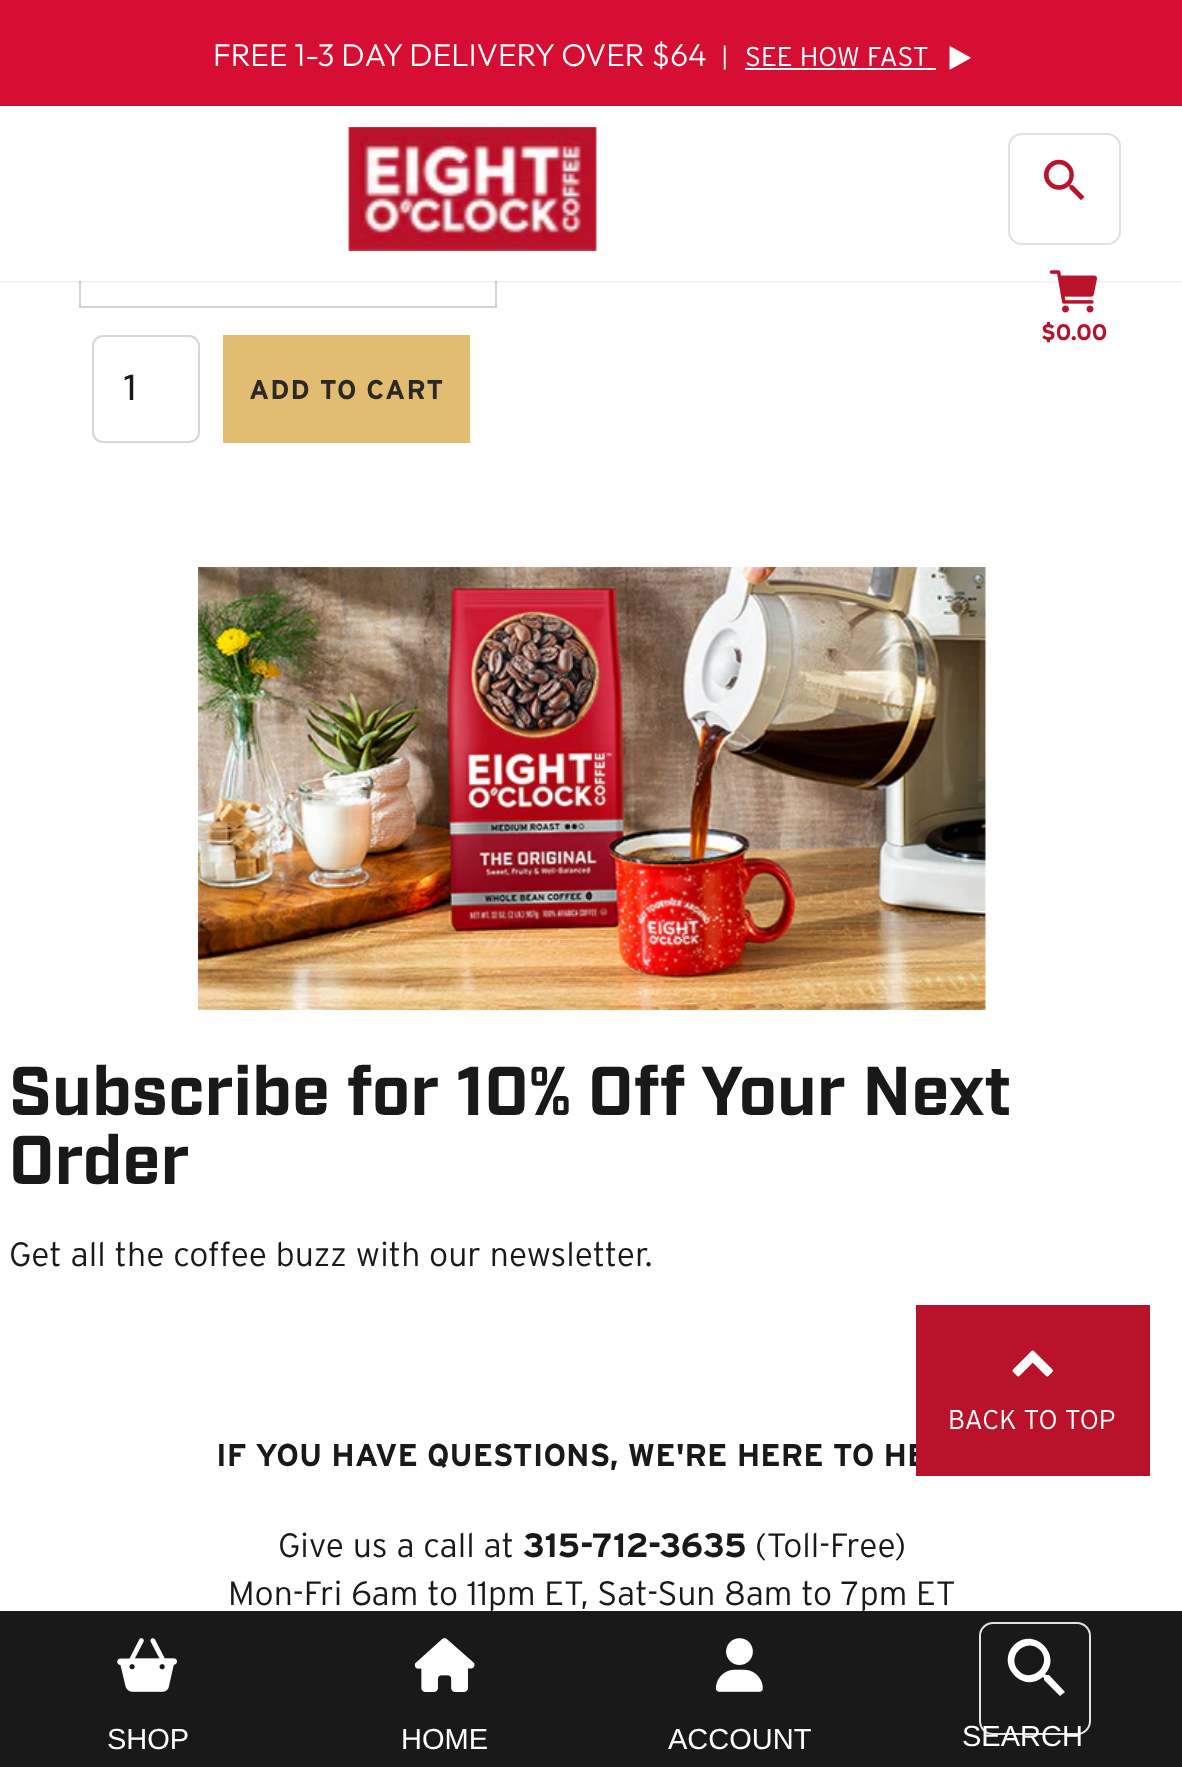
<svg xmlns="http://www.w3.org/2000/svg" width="1182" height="1767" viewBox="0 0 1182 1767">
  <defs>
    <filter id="blur1" x="-50%" y="-200%" width="200%" height="500%"><feGaussianBlur stdDeviation="1"/></filter>
  </defs>
  <rect width="100%" height="100%" fill="#ffffff"/>
  <rect x="80" y="206" width="416" height="101" fill="none" stroke="#d3d3d3" stroke-width="2"/>
  <rect x="0" y="101" width="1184" height="180" fill="#000000" fill-opacity="0.2" filter="url(#blur1)"/>
  <rect x="0" y="0" width="1182" height="106" fill="#d60e33"/>
  <text x="213" y="66" font-family="Outfit" font-size="31.5" font-weight="300" fill="#ffffff">FREE 1-3 DAY DELIVERY OVER $64</text>
  <text x="721" y="66" font-family="Outfit" font-size="27" font-weight="300" letter-spacing="1" fill="#ffffff">|</text>
  <text x="745" y="66" font-family="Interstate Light" font-size="27" font-weight="300" fill="#ffffff">SEE HOW FAST</text>
  <rect x="745" y="68" width="191" height="2" fill="#ffffff"/>
  <image x="949" y="46" width="22" height="24" href="img1.png"/>
  <rect x="0" y="106" width="1182" height="175" fill="#ffffff"/>
  <image x="348" y="127" width="249" height="124" href="img2.png"/>
  <rect x="1009" y="134" width="111" height="110" rx="13" fill="none" stroke="#e1e1e1" stroke-width="2"/>
  <image x="1044" y="159" width="41" height="42" href="img3.png"/>
  <image x="1049" y="270" width="48" height="43" href="img4.png"/>
  <text x="1041" y="340" font-family="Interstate" font-size="22.5" font-weight="bold" fill="#ba122b">$0.00</text>
  <rect x="93" y="336" width="106" height="106" rx="10" fill="none" stroke="#d7d7d7" stroke-width="2"/>
  <text x="123" y="400" font-family="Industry" font-size="36" font-weight="500" letter-spacing="1" fill="#191919">1</text>
  <rect x="223" y="335" width="247" height="108" fill="#e2bc70"/>
  <text x="249" y="399" font-family="Interstate" font-size="27" font-weight="bold" letter-spacing="1.1" fill="#2b2926">ADD TO CART</text>
  <image x="198" y="567" width="788" height="443" href="img5.png"/>
  <text x="9" y="1115" font-family="Industry" font-size="68.8" font-weight="bold" fill="#191919">Subscribe for 10% Off Your Next</text>
  <text x="9" y="1184" font-family="Industry" font-size="68.8" font-weight="bold" fill="#191919">Order</text>
  <text x="9" y="1266" font-family="Interstate Light" font-size="33.75" font-weight="300" fill="#191919">Get all the coffee buzz with our newsletter.</text>
  <text x="216" y="1466" font-family="Interstate" font-size="31.5" font-weight="bold" fill="#191919">IF YOU HAVE QUESTIONS, WE'RE HERE TO HE</text>
  <text x="278" y="1557" font-family="Interstate Light" font-size="33.75" font-weight="300" fill="#191919">Give us a call at</text>
  <text x="523" y="1557" font-family="Interstate" font-size="33.75" font-weight="bold" fill="#191919">315-712-3635</text>
  <text x="755" y="1557" font-family="Interstate Light" font-size="33.75" font-weight="300" fill="#191919">(Toll-Free)</text>
  <text x="228" y="1605" font-family="Interstate Light" font-size="33.75" font-weight="300" fill="#191919">Mon-Fri 6am to 11pm ET, Sat-Sun 8am to 7pm ET</text>
  <rect x="916" y="1305" width="234" height="171" fill="#ba122b"/>
  <image x="1012" y="1350" width="41" height="27" href="img6.png"/>
  <text x="948" y="1429" font-family="Interstate Light" font-size="27" font-weight="300" fill="#ffffff">BACK TO TOP</text>
  <rect x="0" y="1611" width="1182" height="156" fill="#191919"/>
  <image x="117" y="1638" width="60" height="54" href="img7.png"/>
  <text x="107" y="1749" font-family="Liberation Sans" font-size="29" fill="#ffffff">SHOP</text>
  <image x="414" y="1638" width="61" height="54" href="img8.png"/>
  <text x="401" y="1749" font-family="Liberation Sans" font-size="29" fill="#ffffff">HOME</text>
  <image x="715" y="1638" width="48" height="54" href="img9.png"/>
  <text x="668" y="1749" font-family="Liberation Sans" font-size="29" fill="#ffffff">ACCOUNT</text>
  <rect x="980" y="1623" width="110" height="111" rx="13" fill="none" stroke="#e1e1e1" stroke-width="2"/>
  <path d="M1049 1675L1065 1692L1060 1696L1044 1680V1678L1043 1677C1023 1694 995 1665 1014 1645C1033 1626 1063 1654 1045 1674L1046 1675ZM1019 1671C1032 1684 1053 1664 1040 1650C1026 1636 1005 1657 1019 1671Z" fill="#ffffff"/>
  <text x="962" y="1746" font-family="Liberation Sans" font-size="29" fill="#ffffff">SEARCH</text>
</svg>
